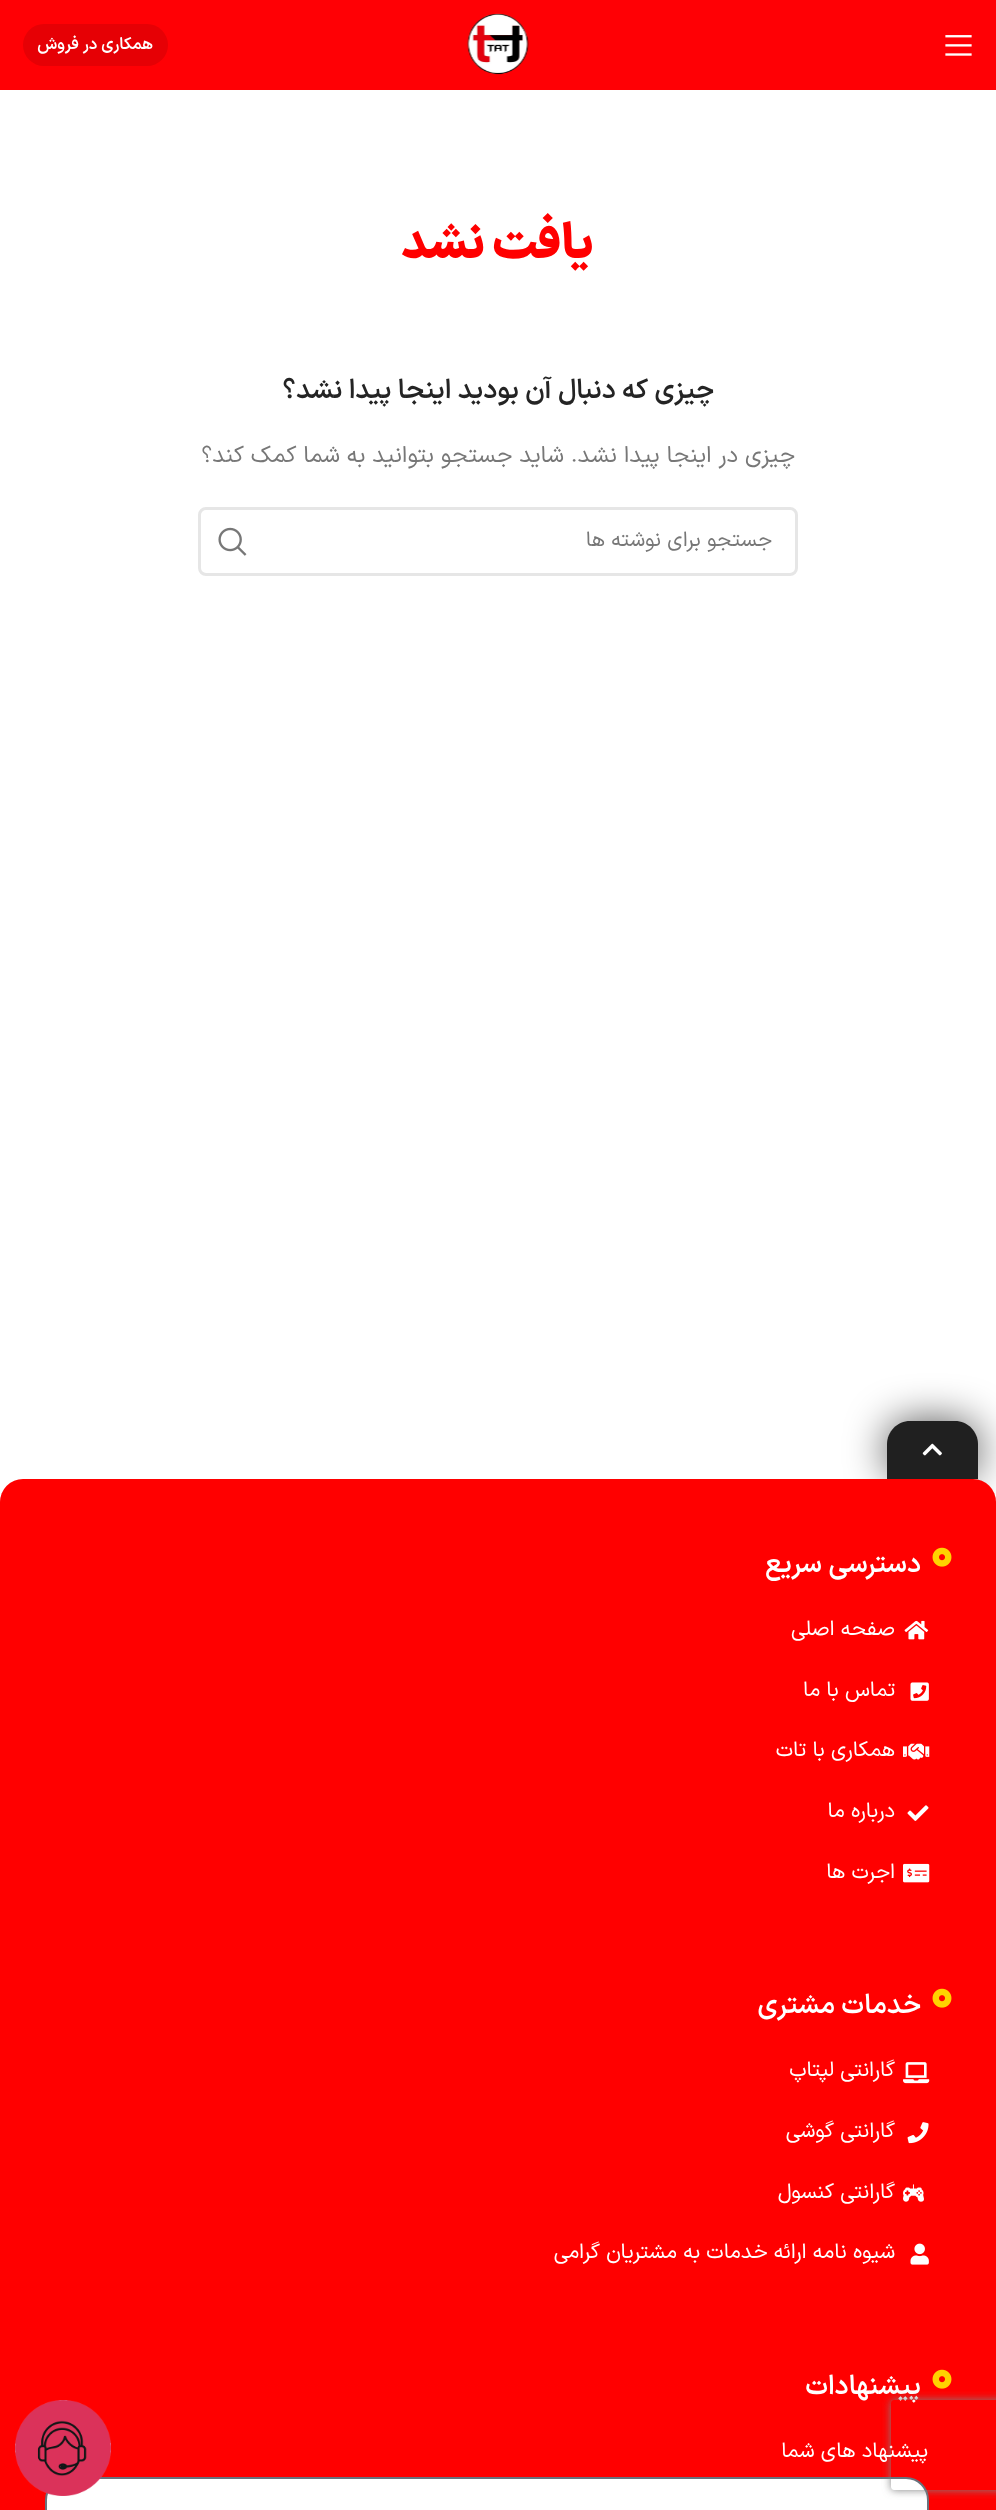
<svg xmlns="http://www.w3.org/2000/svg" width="996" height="2510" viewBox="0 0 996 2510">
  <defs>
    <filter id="blur1" x="-50%" y="-200%" width="200%" height="500%"><feGaussianBlur stdDeviation="21"/></filter>
    <clipPath id="clip1"><path d="M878 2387H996V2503H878ZM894 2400H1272C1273.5 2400 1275 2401.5 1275 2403V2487C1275 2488.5 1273.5 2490 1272 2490H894C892.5 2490 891 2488.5 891 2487V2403C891 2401.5 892.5 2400 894 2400Z" clip-rule="evenodd"/></clipPath>
    <filter id="blur2" x="-50%" y="-200%" width="200%" height="500%"><feGaussianBlur stdDeviation="4"/></filter>
  </defs>
  <rect width="100%" height="100%" fill="#ffffff"/>
  <rect x="0" y="0" width="996" height="90" fill="#ff0005"/>
  <image x="945" y="35" width="27" height="21" href="img1.png"/>
  <image x="467" y="13" width="62" height="62" href="img2.png"/>
  <rect x="23" y="24" width="145" height="42" rx="21" fill="#e60005"/>
  <text x="153" y="49" font-family="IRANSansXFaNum" font-size="16.5" font-weight="600" direction="rtl" fill="#ffffff">همکاری در فروش</text>
  <text x="594" y="258" font-family="IRANSansXFaNum" font-size="48" font-weight="900" direction="rtl" fill="#ff0000">یافت نشد</text>
  <text x="714" y="398" font-family="IRANSansXFaNum" font-size="27" font-weight="600" direction="rtl" fill="#242424">چیزی که دنبال آن بودید اینجا پیدا نشد؟</text>
  <text x="795" y="462" font-family="IRANSansXFaNum" font-size="23.1" direction="rtl" fill="#777777">چیزی در اینجا پیدا نشد. شاید جستجو بتوانید به شما کمک کند؟</text>
  <rect x="199.5" y="508.5" width="597" height="66" rx="6.5" fill="none" stroke="#e6e6e6" stroke-width="3"/>
  <text x="772" y="546" font-family="IRANSansXFaNum" font-size="21" direction="rtl" fill="#777777">جستجو برای نوشته ها</text>
  <image x="218" y="527" width="29" height="29" href="img3.png"/>
  <rect x="887" y="1421" width="91" height="58" rx="23" fill="#000000" fill-opacity="0.68" filter="url(#blur1)"/>
  <path d="M910 1421H955C967.5 1421 978 1431.5 978 1444V1479H887V1444C887 1431.5 897.5 1421 910 1421Z" fill="#202020"/>
  <image x="922" y="1443" width="20" height="13" href="img4.png"/>
  <rect x="0" y="1479" width="996" height="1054" rx="23" fill="#ff0000"/>
  <image x="932" y="1547" width="20" height="20" href="img5.png"/>
  <text x="921" y="1572" font-family="IRANSansXFaNum" font-size="27" font-weight="600" direction="rtl" fill="#ffffff">دسترسی سریع</text>
  <image x="904" y="1620" width="25" height="20" href="img6.png"/>
  <text x="895" y="1635" font-family="IRANSansXFaNum" font-size="21" direction="rtl" fill="#ffffff">صفحه اصلی</text>
  <image x="910" y="1682" width="19" height="19" href="img7.png"/>
  <text x="895" y="1696" font-family="IRANSansXFaNum" font-size="21" direction="rtl" fill="#ffffff">تماس با ما</text>
  <image x="903" y="1743" width="27" height="17" href="img8.png"/>
  <text x="895" y="1756" font-family="IRANSansXFaNum" font-size="21" direction="rtl" fill="#ffffff">همکاری با تات</text>
  <image x="907" y="1805" width="22" height="16" href="img9.png"/>
  <text x="895" y="1817" font-family="IRANSansXFaNum" font-size="21" direction="rtl" fill="#ffffff">درباره ما</text>
  <image x="903" y="1863" width="27" height="20" href="img10.png"/>
  <text x="895" y="1878" font-family="IRANSansXFaNum" font-size="21" direction="rtl" fill="#ffffff">اجرت ها</text>
  <image x="932" y="1988" width="20" height="20" href="img5.png"/>
  <text x="921" y="2013" font-family="IRANSansXFaNum" font-size="27" font-weight="600" direction="rtl" fill="#ffffff">خدمات مشتری</text>
  <image x="903" y="2062" width="27" height="22" href="img11.png"/>
  <text x="895" y="2076" font-family="IRANSansXFaNum" font-size="21" direction="rtl" fill="#ffffff">گارانتی لپتاپ</text>
  <image x="907" y="2122" width="22" height="22" href="img12.png"/>
  <text x="895" y="2137" font-family="IRANSansXFaNum" font-size="21" direction="rtl" fill="#ffffff">گارانتی گوشی</text>
  <image x="903" y="2184" width="21" height="18" href="img13.png"/>
  <text x="895" y="2198" font-family="IRANSansXFaNum" font-size="21" direction="rtl" fill="#ffffff">گارانتی کنسول</text>
  <image x="910" y="2243" width="19" height="22" href="img14.png"/>
  <text x="895" y="2258" font-family="IRANSansXFaNum" font-size="21" direction="rtl" fill="#ffffff">شيوه نامه ارائه خدمات به مشتریان گرامی</text>
  <image x="932" y="2369" width="20" height="20" href="img5.png"/>
  <text x="921" y="2394" font-family="IRANSansXFaNum" font-size="27" font-weight="600" direction="rtl" fill="#ffffff">پیشنهادات</text>
  <rect x="46" y="2478" width="882" height="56" rx="22" fill="#ffffff" stroke="#69727d" stroke-width="2"/>
  <g clip-path="url(#clip1)">
    <rect x="891" y="2400" width="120" height="90" rx="3" fill="#808080" filter="url(#blur2)"/>
  </g>
  <text x="928" y="2457" font-family="IRANSansXFaNum" font-size="21" direction="rtl" fill="#ffffff">پیشنهاد های شما</text>
  <image x="15" y="2400" width="96" height="96" href="img15.png"/>
</svg>
